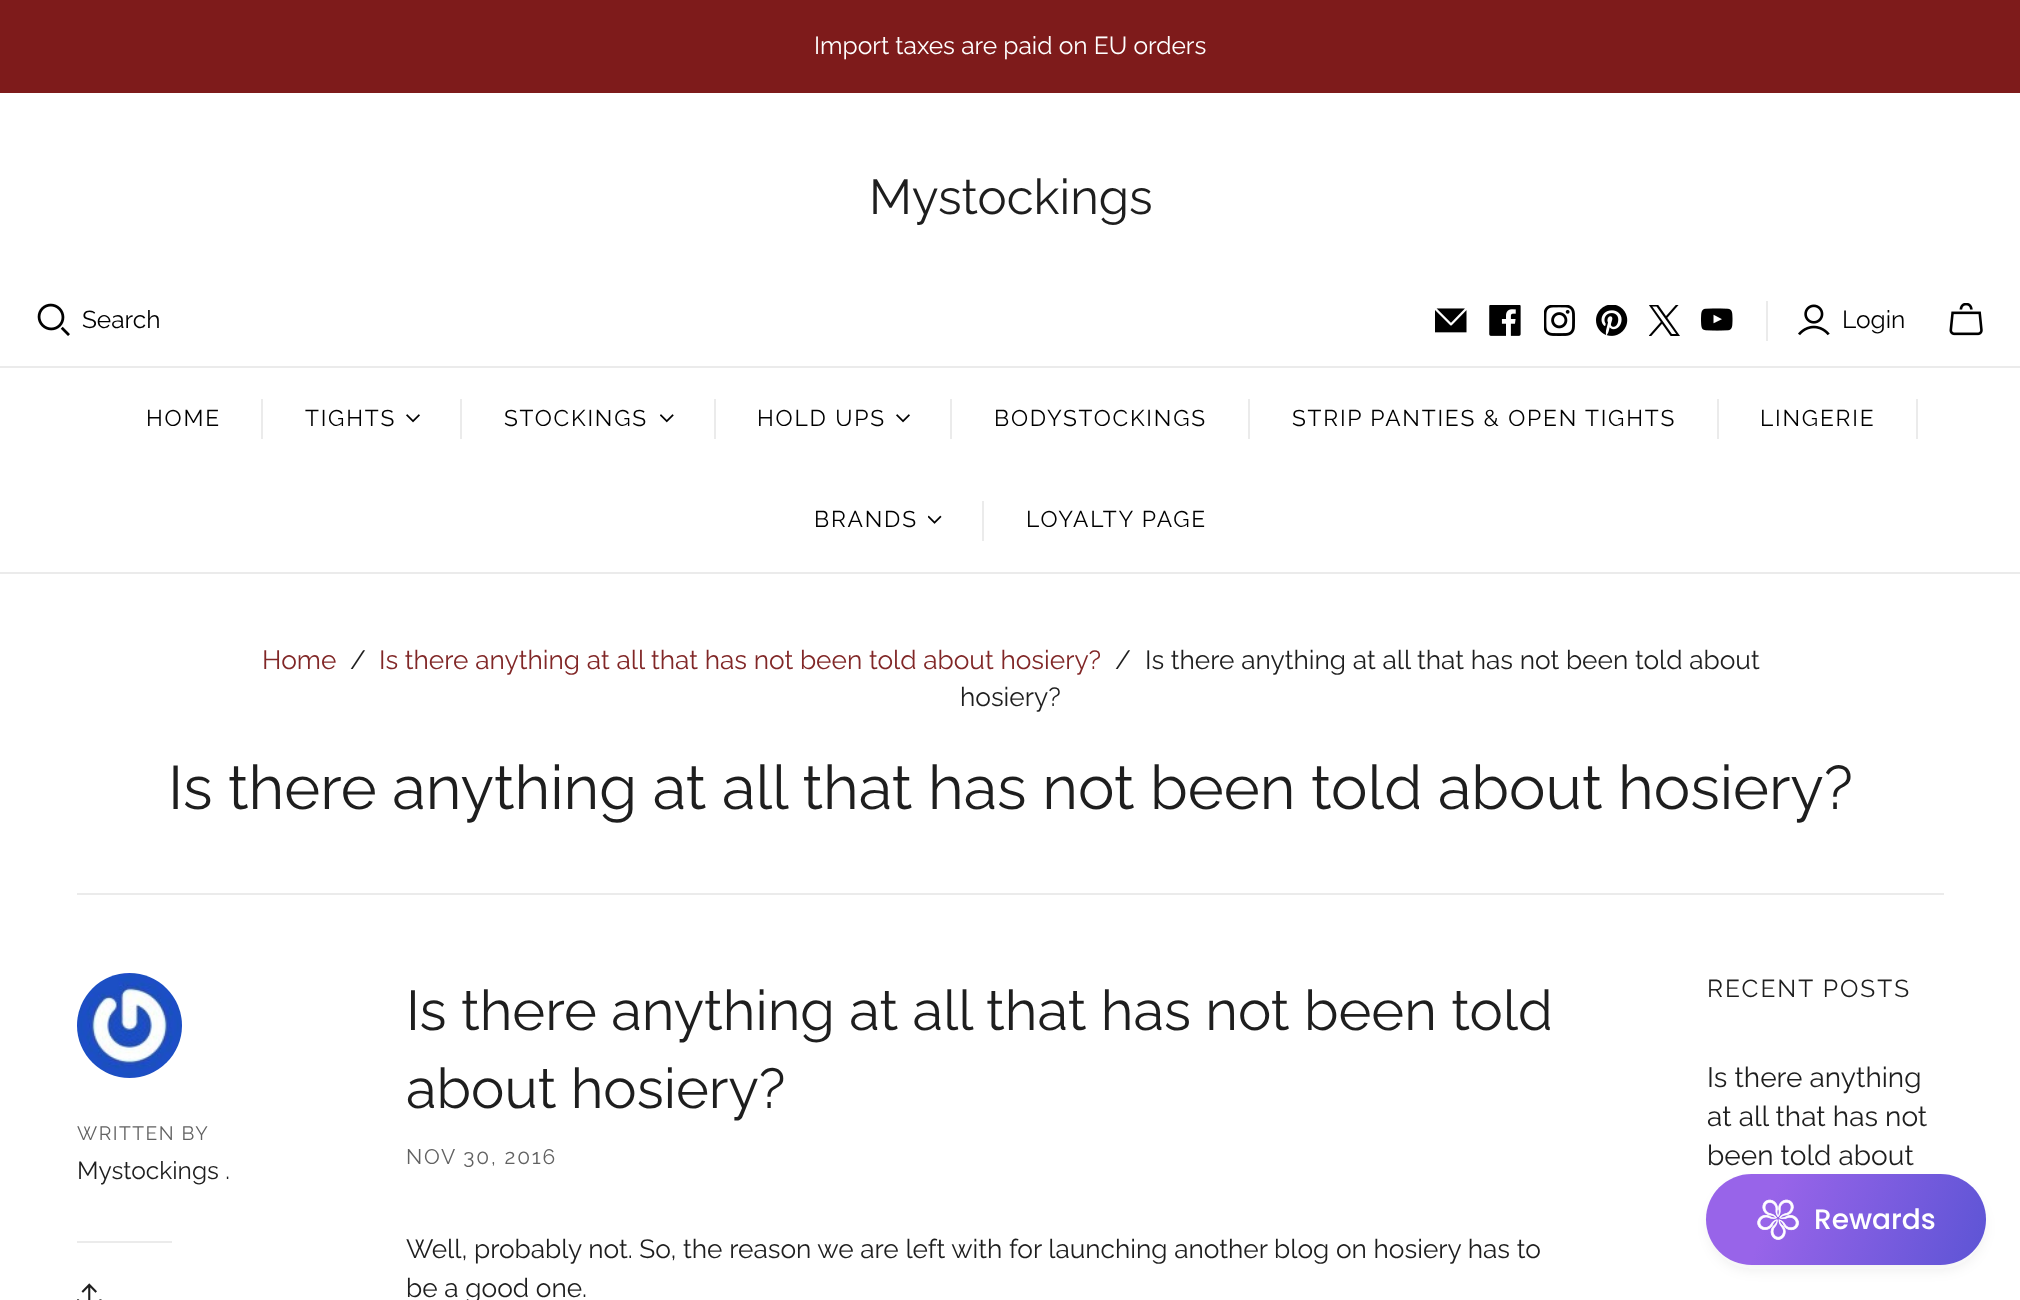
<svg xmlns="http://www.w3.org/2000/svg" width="2020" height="1300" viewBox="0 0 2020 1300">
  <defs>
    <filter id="blur1" x="-50%" y="-200%" width="200%" height="500%"><feGaussianBlur stdDeviation="7"/></filter>
    <linearGradient id="g1" gradientUnits="userSpaceOnUse" x1="1708" y1="1171" x2="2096" y2="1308"><stop offset="0.17" stop-color="#9864e9"/><stop offset="1" stop-color="#3d4cca"/></linearGradient>
  </defs>
  <rect width="100%" height="100%" fill="#ffffff"/>
  <rect x="0" y="0" width="2020" height="93" fill="#7e1b1b"/>
  <text x="814" y="54" font-family="Raleway" font-size="24.5" fill="#ffffff">Import taxes are paid on EU orders</text>
  <text x="869" y="214" font-family="Raleway" font-size="49" fill="#1e1e1e">Mystockings</text>
  <image x="37" y="303" width="33" height="33" href="img1.png"/>
  <text x="82" y="328" font-family="Raleway" font-size="24.5" fill="#000000">Search</text>
  <image x="1435" y="308" width="32" height="25" href="img2.png"/>
  <image x="1489" y="305" width="32" height="31" href="img3.png"/>
  <image x="1544" y="305" width="31" height="31" href="img4.png"/>
  <image x="1596" y="305" width="32" height="31" href="img5.png"/>
  <image x="1649" y="305" width="31" height="31" href="img6.png"/>
  <image x="1701" y="308" width="32" height="23" href="img7.png"/>
  <rect x="1766" y="301" width="2" height="40" fill="#ebebeb"/>
  <image x="1798" y="304" width="32" height="32" href="img8.png"/>
  <text x="1842" y="328" font-family="Raleway" font-size="24.5" fill="#000000">Login</text>
  <image x="1949" y="303" width="34" height="33" href="img9.png"/>
  <rect x="0" y="366" width="2020" height="2" fill="#ebebeb"/>
  <rect x="0" y="572" width="2020" height="2" fill="#ebebeb"/>
  <text x="146" y="426" font-family="Raleway" font-size="22.75" letter-spacing="1.8" fill="#000000">HOME</text>
  <rect x="261" y="399" width="2" height="40" fill="#ebebeb"/>
  <text x="305" y="426" font-family="Raleway" font-size="22.75" letter-spacing="1.8" fill="#000000">TIGHTS</text>
  <image x="406" y="414" width="14" height="9" href="img10.png"/>
  <rect x="460" y="399" width="2" height="40" fill="#ebebeb"/>
  <text x="504" y="426" font-family="Raleway" font-size="22.75" letter-spacing="1.8" fill="#000000">STOCKINGS</text>
  <image x="660" y="414" width="14" height="9" href="img11.png"/>
  <rect x="714" y="399" width="2" height="40" fill="#ebebeb"/>
  <text x="757" y="426" font-family="Raleway" font-size="22.75" letter-spacing="1.8" fill="#000000">HOLD UPS</text>
  <image x="896" y="414" width="14" height="9" href="img10.png"/>
  <rect x="950" y="399" width="2" height="40" fill="#ebebeb"/>
  <text x="994" y="426" font-family="Raleway" font-size="22.75" letter-spacing="1.8" fill="#000000">BODYSTOCKINGS</text>
  <rect x="1248" y="399" width="2" height="40" fill="#ebebeb"/>
  <text x="1292" y="426" font-family="Raleway" font-size="22.75" letter-spacing="1.8" fill="#000000">STRIP PANTIES &amp; OPEN TIGHTS</text>
  <rect x="1717" y="399" width="2" height="40" fill="#ebebeb"/>
  <text x="1760" y="426" font-family="Raleway" font-size="22.75" letter-spacing="1.8" fill="#000000">LINGERIE</text>
  <rect x="1916" y="399" width="2" height="40" fill="#ebebeb"/>
  <text x="814" y="527" font-family="Raleway" font-size="22.75" letter-spacing="1.8" fill="#000000">BRANDS</text>
  <image x="928" y="515" width="14" height="9" href="img12.png"/>
  <rect x="982" y="501" width="2" height="40" fill="#ebebeb"/>
  <text x="1026" y="527" font-family="Raleway" font-size="22.75" letter-spacing="1.8" fill="#000000">LOYALTY PAGE</text>
  <text x="262" y="669" font-family="Raleway" font-size="26.25" fill="#812727">Home</text>
  <text x="350" y="669" font-family="Raleway" font-size="26.25" fill="#1e1e1e">/</text>
  <text x="379" y="669" font-family="Raleway" font-size="26.25" fill="#812727">Is there anything at all that has not been told about hosiery?</text>
  <text x="1115" y="669" font-family="Raleway" font-size="26.25" fill="#1e1e1e">/</text>
  <text x="1145" y="669" font-family="Raleway" font-size="26.25" fill="#1e1e1e">Is there anything at all that has not been told about</text>
  <text x="960" y="706" font-family="Raleway" font-size="26.25" fill="#1e1e1e">hosiery?</text>
  <rect x="77" y="893" width="1867" height="2" fill="#ebebeb"/>
  <text x="168" y="809" font-family="Raleway" font-size="61.25" fill="#1e1e1e">Is there anything at all that has not been told about hosiery?</text>
  <image x="77" y="973" width="105" height="105" href="img13.png"/>
  <text x="77" y="1140" font-family="Raleway" font-size="19.25" letter-spacing="1.5" fill="#626262">WRITTEN BY</text>
  <text x="77" y="1179" font-family="Raleway" font-size="24.5" fill="#1e1e1e">Mystockings .</text>
  <rect x="77" y="1241" width="95" height="2" fill="#ebebeb"/>
  <image x="77" y="1283" width="25" height="17" href="img14.png"/>
  <text x="406" y="1030" font-family="Raleway" font-size="56" fill="#1e1e1e">Is there anything at all that has not been told</text>
  <text x="406" y="1108" font-family="Raleway" font-size="56" fill="#1e1e1e">about hosiery?</text>
  <text x="406" y="1164" font-family="Raleway" font-size="21" letter-spacing="1.75" fill="#626262">NOV 30, 2016</text>
  <text x="406" y="1258" font-family="Raleway" font-size="26.25" fill="#1e1e1e">Well, probably not. So, the reason we are left with for launching another blog on hosiery has to</text>
  <text x="406" y="1297" font-family="Raleway" font-size="26.25" fill="#1e1e1e">be a good one.</text>
  <text x="1707" y="997" font-family="Raleway" font-size="24.5" letter-spacing="2" fill="#1e1e1e">RECENT POSTS</text>
  <text x="1707" y="1087" font-family="Raleway" font-size="28" fill="#1e1e1e">Is there anything</text>
  <text x="1707" y="1126" font-family="Raleway" font-size="28" fill="#1e1e1e">at all that has not</text>
  <text x="1707" y="1165" font-family="Raleway" font-size="28" fill="#1e1e1e">been told about</text>
  <rect x="1710" y="1185" width="273" height="84" rx="42" fill="#444444" fill-opacity="0.08" filter="url(#blur1)"/>
  <rect x="1706" y="1174" width="280" height="91" rx="45.5" fill="url(#g1)"/>
  <image x="1757" y="1199" width="42" height="41" href="img15.png"/>
  <text x="1814" y="1229" font-family="Poppins" font-size="28" font-weight="500" fill="#ffffff">Rewards</text>
</svg>
